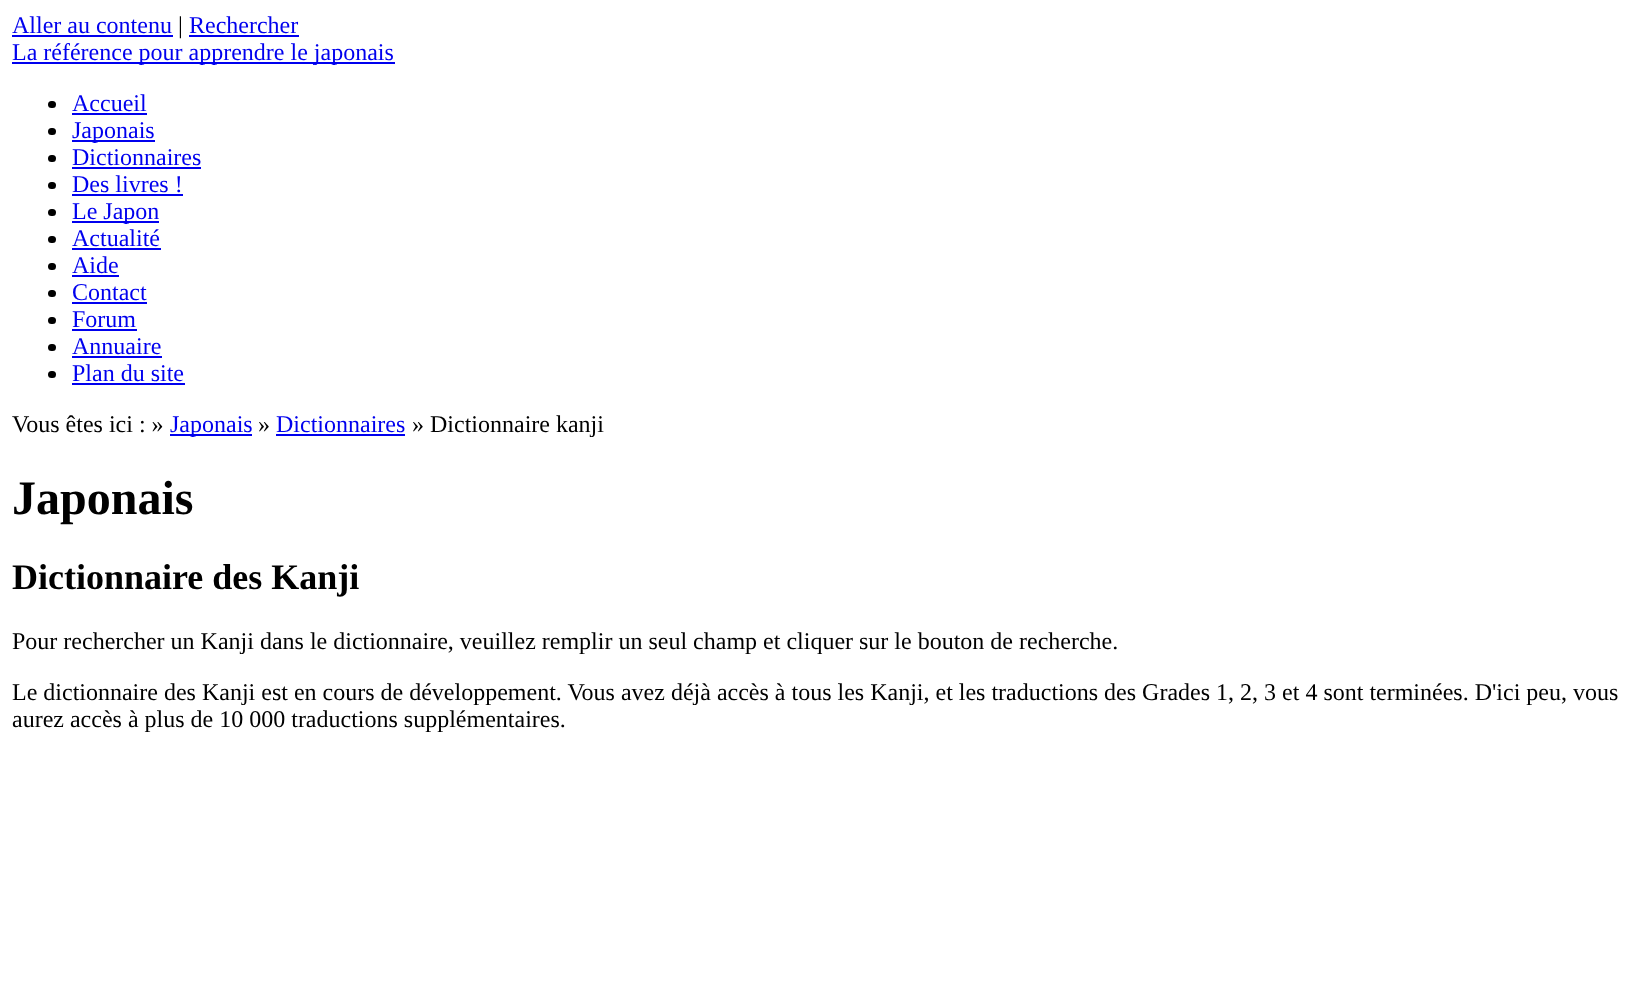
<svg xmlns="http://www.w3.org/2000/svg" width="1652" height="987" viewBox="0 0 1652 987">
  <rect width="100%" height="100%" fill="#ffffff"/>
  <text x="12" y="33" font-family="Liberation Serif" font-size="24" fill="#0000ee">Aller au contenu</text>
  <rect x="12" y="35" width="161" height="2" fill="#0000ee"/>
  <text x="178" y="33" font-family="Liberation Serif" font-size="24" fill="#000000">|</text>
  <text x="189" y="33" font-family="Liberation Serif" font-size="24" fill="#0000ee">Rechercher</text>
  <rect x="189" y="35" width="110" height="2" fill="#0000ee"/>
  <rect x="12" y="62" width="383" height="2" fill="#0000ee"/>
  <text x="12" y="60" font-family="Liberation Serif" font-size="24" fill="#0000ee">La référence pour apprendre le japonais</text>
  <rect x="48" y="101" width="8" height="7" rx="3.5" fill="#000000"/>
  <text x="72" y="111" font-family="Liberation Serif" font-size="24" fill="#0000ee">Accueil</text>
  <rect x="72" y="113" width="75" height="2" fill="#0000ee"/>
  <rect x="48" y="128" width="8" height="7" rx="3.5" fill="#000000"/>
  <rect x="72" y="140" width="83" height="2" fill="#0000ee"/>
  <text x="72" y="138" font-family="Liberation Serif" font-size="24" fill="#0000ee">Japonais</text>
  <rect x="48" y="155" width="8" height="7" rx="3.5" fill="#000000"/>
  <text x="72" y="165" font-family="Liberation Serif" font-size="24" fill="#0000ee">Dictionnaires</text>
  <rect x="72" y="167" width="129" height="2" fill="#0000ee"/>
  <rect x="48" y="182" width="8" height="7" rx="3.5" fill="#000000"/>
  <text x="72" y="192" font-family="Liberation Serif" font-size="24" fill="#0000ee">Des livres !</text>
  <rect x="72" y="194" width="111" height="2" fill="#0000ee"/>
  <rect x="48" y="209" width="8" height="7" rx="3.5" fill="#000000"/>
  <rect x="72" y="221" width="87" height="2" fill="#0000ee"/>
  <text x="72" y="219" font-family="Liberation Serif" font-size="24" fill="#0000ee">Le Japon</text>
  <rect x="48" y="236" width="8" height="7" rx="3.5" fill="#000000"/>
  <text x="72" y="246" font-family="Liberation Serif" font-size="24" fill="#0000ee">Actualité</text>
  <rect x="72" y="248" width="89" height="2" fill="#0000ee"/>
  <rect x="48" y="263" width="8" height="7" rx="3.5" fill="#000000"/>
  <text x="72" y="273" font-family="Liberation Serif" font-size="24" fill="#0000ee">Aide</text>
  <rect x="72" y="275" width="47" height="2" fill="#0000ee"/>
  <rect x="48" y="290" width="8" height="7" rx="3.5" fill="#000000"/>
  <text x="72" y="300" font-family="Liberation Serif" font-size="24" fill="#0000ee">Contact</text>
  <rect x="72" y="302" width="75" height="2" fill="#0000ee"/>
  <rect x="48" y="317" width="8" height="7" rx="3.5" fill="#000000"/>
  <text x="72" y="327" font-family="Liberation Serif" font-size="24" fill="#0000ee">Forum</text>
  <rect x="72" y="329" width="65" height="2" fill="#0000ee"/>
  <rect x="48" y="344" width="8" height="7" rx="3.5" fill="#000000"/>
  <text x="72" y="354" font-family="Liberation Serif" font-size="24" fill="#0000ee">Annuaire</text>
  <rect x="72" y="356" width="90" height="2" fill="#0000ee"/>
  <rect x="48" y="371" width="8" height="7" rx="3.5" fill="#000000"/>
  <text x="72" y="381" font-family="Liberation Serif" font-size="24" fill="#0000ee">Plan du site</text>
  <rect x="72" y="383" width="113" height="2" fill="#0000ee"/>
  <text x="12" y="432" font-family="Liberation Serif" font-size="24" fill="#000000">Vous êtes ici : »</text>
  <rect x="170" y="434" width="82" height="2" fill="#0000ee"/>
  <text x="170" y="432" font-family="Liberation Serif" font-size="24" fill="#0000ee">Japonais</text>
  <text x="258" y="432" font-family="Liberation Serif" font-size="24" fill="#000000">»</text>
  <text x="276" y="432" font-family="Liberation Serif" font-size="24" fill="#0000ee">Dictionnaires</text>
  <rect x="276" y="434" width="129" height="2" fill="#0000ee"/>
  <text x="412" y="432" font-family="Liberation Serif" font-size="24" fill="#000000">» Dictionnaire kanji</text>
  <text x="12" y="514" font-family="Liberation Serif" font-size="48" font-weight="bold" fill="#000000">Japonais</text>
  <text x="12" y="589" font-family="Liberation Serif" font-size="36" font-weight="bold" fill="#000000">Dictionnaire des Kanji</text>
  <text x="12" y="649" font-family="Liberation Serif" font-size="24" fill="#000000">Pour rechercher un Kanji dans le dictionnaire, veuillez remplir un seul champ et cliquer sur le bouton de recherche.</text>
  <text x="12" y="700" font-family="Liberation Serif" font-size="24" fill="#000000">Le dictionnaire des Kanji est en cours de développement. Vous avez déjà accès à tous les Kanji, et les traductions des Grades 1, 2, 3 et 4 sont terminées. D'ici peu, vous</text>
  <text x="12" y="727" font-family="Liberation Serif" font-size="24" fill="#000000">aurez accès à plus de 10 000 traductions supplémentaires.</text>
</svg>
